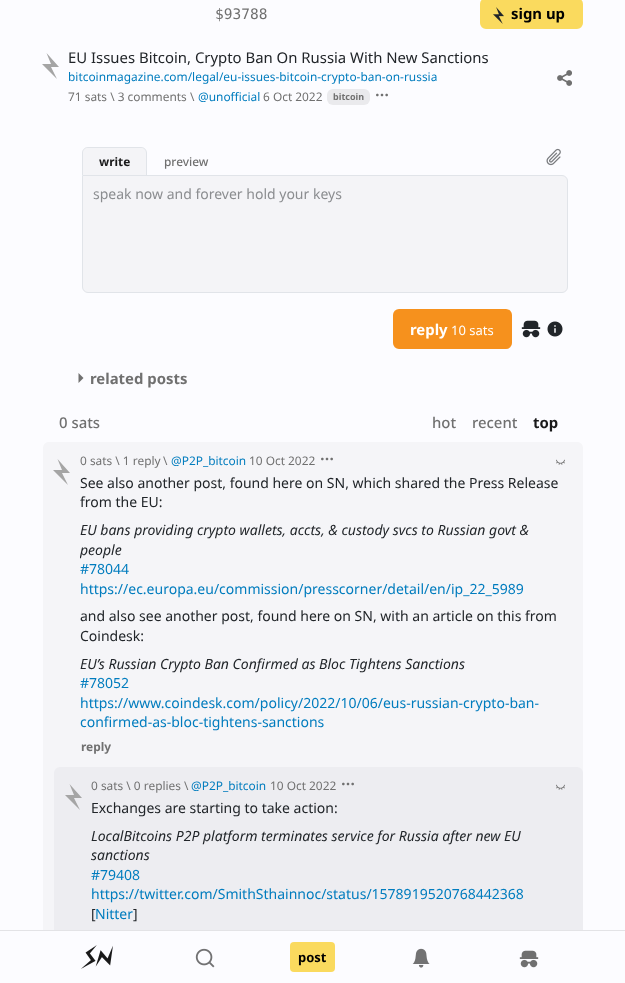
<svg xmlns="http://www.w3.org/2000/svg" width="625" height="983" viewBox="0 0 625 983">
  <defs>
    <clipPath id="clip1"><rect x="80" y="473" width="488" height="259"/></clipPath>
  </defs>
  <rect width="100%" height="100%" fill="#fcfcff"/>
  <text x="215" y="19" font-family="DejaVu Sans Mono" font-size="14.5" fill="#707070">$93788</text>
  <rect x="481" y="-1" width="101" height="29" rx="5" fill="#fada5e" stroke="#fada5e" stroke-width="2"/>
  <image x="493" y="7" width="11" height="17" href="img1.png"/>
  <text x="511" y="19" font-family="Noto Sans" font-size="14.9" font-weight="bold" fill="#000000">sign up</text>
  <path d="M46.5 53L51 64H42L57 79L51 67H59Z" fill="#a5a5a5"/>
  <text x="68" y="63" font-family="Noto Sans" font-size="14.9" fill="#212529">EU Issues Bitcoin, Crypto Ban On Russia With New Sanctions</text>
  <text x="68" y="81" font-family="Noto Sans" font-size="11.9" fill="#007cbe">bitcoinmagazine.com/legal/eu-issues-bitcoin-crypto-ban-on-russia</text>
  <text x="68" y="101" font-family="Noto Sans" font-size="11.9" fill="#707070">71 sats \ 3 comments</text>
  <text x="190" y="101" font-family="Noto Sans" font-size="11.9" fill="#707070">\</text>
  <text x="198" y="101" font-family="Noto Sans" font-size="11.9" fill="#007cbe">@unofficial</text>
  <text x="263" y="101" font-family="Noto Sans" font-size="11.9" fill="#707070">6 Oct 2022</text>
  <rect x="327" y="89" width="43" height="16" rx="6" fill="#eaeaed"/>
  <text x="333" y="100" font-family="Noto Sans" font-size="9" font-weight="bold" fill="#707070">bitcoin</text>
  <image x="376" y="93" width="12" height="4" href="img2.png"/>
  <image x="557" y="70" width="15" height="16" href="img3.png"/>
  <path d="M88 147H141C144.5 147 147 149.5 147 153V175H82V153C82 149.5 84.5 147 88 147Z" fill="#f4f4f7"/>
  <path d="M88 147H141C144 147 147 150 147 153V175H82V153C82 150 85 147 88 147ZM88 148H141C144 148 146 150 146 153V175H83V153C83 150 85 148 88 148Z" fill="#e1e4e9" fill-rule="evenodd"/>
  <text x="99" y="166" font-family="Noto Sans" font-size="11.9" font-weight="bold" fill="#19191a">write</text>
  <text x="164" y="166" font-family="Noto Sans" font-size="11.9" font-weight="500" fill="#707070">preview</text>
  <image x="546" y="148" width="15" height="18" href="img4.png"/>
  <path d="M82.5 175.5H562C565 175.5 567.5 178 567.5 181V287C567.5 290 565 292.5 562 292.5H88C85 292.5 82.5 290 82.5 287Z" fill="#f4f4f7" stroke="#e1e4e9"/>
  <text x="93" y="199" font-family="Noto Sans" font-size="14" fill="#8b8d90">speak now and forever hold your keys</text>
  <rect x="393" y="309" width="119" height="40" rx="6" fill="#f6911d"/>
  <text x="410" y="335" font-family="Noto Sans" font-size="14.9" font-weight="bold" fill="#ffffff">reply</text>
  <text x="451" y="335" font-family="Noto Sans" font-size="13" fill="#ffffff">10 sats</text>
  <image x="521" y="320" width="20" height="18" href="img5.png"/>
  <image x="547" y="321" width="16" height="16" href="img6.png"/>
  <path d="M83.5 378L78.5 383V373Z" fill="#707070"/>
  <text x="90" y="384" font-family="Noto Sans" font-size="14.9" font-weight="bold" fill="#707070">related posts</text>
  <text x="59" y="428" font-family="Noto Sans" font-size="14.9" font-weight="500" fill="#707070">0 sats</text>
  <text x="432" y="428" font-family="Noto Sans" font-size="14.9" font-weight="500" fill="#707070">hot</text>
  <text x="472" y="428" font-family="Noto Sans" font-size="14.9" font-weight="500" fill="#707070">recent</text>
  <text x="533" y="428" font-family="Noto Sans" font-size="14.9" font-weight="bold" fill="#19191a">top</text>
  <path d="M49 442H577C580.5 442 583 444.5 583 448V959H43V448C43 444.5 45.5 442 49 442Z" fill="#f5f5f8"/>
  <path d="M57.5 459L62 470H53L68 485L62 473H70Z" fill="#a5a5a5"/>
  <text x="80" y="465" font-family="Noto Sans" font-size="11.9" fill="#707070">0 sats \ 1 reply</text>
  <text x="163" y="465" font-family="Noto Sans" font-size="11.9" fill="#707070">\</text>
  <text x="171" y="465" font-family="Noto Sans" font-size="11.9" fill="#007cbe">@P2P_bitcoin</text>
  <text x="249" y="465" font-family="Noto Sans" font-size="11.9" fill="#707070">10 Oct 2022</text>
  <image x="321" y="457" width="12" height="4" href="img7.png"/>
  <image x="556" y="459" width="9" height="6" href="img8.png"/>
  <text x="80" y="488" font-family="Noto Sans" font-size="14" fill="#212529">See also another post, found here on SN, which shared the Press Release</text>
  <text x="80" y="507" font-family="Noto Sans" font-size="14" fill="#212529">from the EU:</text>
  <text x="80" y="535" font-family="Noto Sans" font-size="14" font-style="italic" fill="#212529">EU bans providing crypto wallets, accts, &amp; custody svcs to Russian govt &amp;</text>
  <g clip-path="url(#clip1)">
    <text x="80" y="555" font-family="Noto Sans" font-size="14" font-style="italic" fill="#212529">people</text>
  </g>
  <text x="80" y="574" font-family="Noto Sans" font-size="14" fill="#007cbe">#78044</text>
  <text x="80" y="594" font-family="Noto Sans" font-size="14" fill="#007cbe">https://ec.europa.eu/commission/presscorner/detail/en/ip_22_5989</text>
  <text x="80" y="621" font-family="Noto Sans" font-size="14" fill="#212529">and also see another post, found here on SN, with an article on this from</text>
  <text x="80" y="641" font-family="Noto Sans" font-size="14" fill="#212529">Coindesk:</text>
  <text x="80" y="669" font-family="Noto Sans" font-size="14" font-style="italic" fill="#212529">EU’s Russian Crypto Ban Confirmed as Bloc Tightens Sanctions</text>
  <text x="80" y="688" font-family="Noto Sans" font-size="14" fill="#007cbe">#78052</text>
  <text x="80" y="708" font-family="Noto Sans" font-size="14" fill="#007cbe">https://www.coindesk.com/policy/2022/10/06/eus-russian-crypto-ban-</text>
  <text x="80" y="727" font-family="Noto Sans" font-size="14" fill="#007cbe">confirmed-as-bloc-tightens-sanctions</text>
  <text x="81" y="751" font-family="Noto Sans" font-size="11.9" font-weight="bold" fill="#707070">reply</text>
  <rect x="54" y="767" width="529" height="192" rx="6" fill="#ededf1"/>
  <path d="M69.5 784L74 795H65L80 810L74 798H82Z" fill="#a5a5a5"/>
  <text x="91" y="790" font-family="Noto Sans" font-size="11.9" fill="#707070">0 sats \ 0 replies</text>
  <text x="184" y="790" font-family="Noto Sans" font-size="11.9" fill="#707070">\</text>
  <text x="191" y="790" font-family="Noto Sans" font-size="11.9" fill="#007cbe">@P2P_bitcoin</text>
  <text x="270" y="790" font-family="Noto Sans" font-size="11.9" fill="#707070">10 Oct 2022</text>
  <image x="342" y="782" width="12" height="4" href="img9.png"/>
  <image x="556" y="784" width="9" height="6" href="img10.png"/>
  <text x="91" y="813" font-family="Noto Sans" font-size="14" fill="#212529">Exchanges are starting to take action:</text>
  <text x="91" y="841" font-family="Noto Sans" font-size="14" font-style="italic" fill="#212529">LocalBitcoins P2P platform terminates service for Russia after new EU</text>
  <text x="91" y="860" font-family="Noto Sans" font-size="14" font-style="italic" fill="#212529">sanctions</text>
  <text x="91" y="880" font-family="Noto Sans" font-size="14" fill="#007cbe">#79408</text>
  <text x="91" y="899" font-family="Noto Sans" font-size="14" fill="#007cbe">https://twitter.com/SmithSthainnoc/status/1578919520768442368</text>
  <text x="91" y="919" font-family="Noto Sans" font-size="14" fill="#212529">[</text>
  <text x="95" y="919" font-family="Noto Sans" font-size="14" fill="#007cbe">Nitter</text>
  <text x="133" y="919" font-family="Noto Sans" font-size="14" fill="#212529">]</text>
  <rect x="43" y="931" width="540" height="28" fill="#fcfcff"/>
  <rect x="0" y="930" width="625" height="1" fill="#e3e3e6"/>
  <image x="81" y="945" width="32" height="24" href="img11.png"/>
  <image x="195" y="948" width="20" height="20" href="img12.png"/>
  <rect x="290" y="942" width="45" height="30" rx="4" fill="#fada5e"/>
  <text x="298" y="962" font-family="Noto Sans" font-size="13" font-weight="bold" fill="#000000">post</text>
  <image x="412" y="948" width="18" height="20" href="img13.png"/>
  <image x="519" y="950" width="20" height="18" href="img14.png"/>
</svg>
